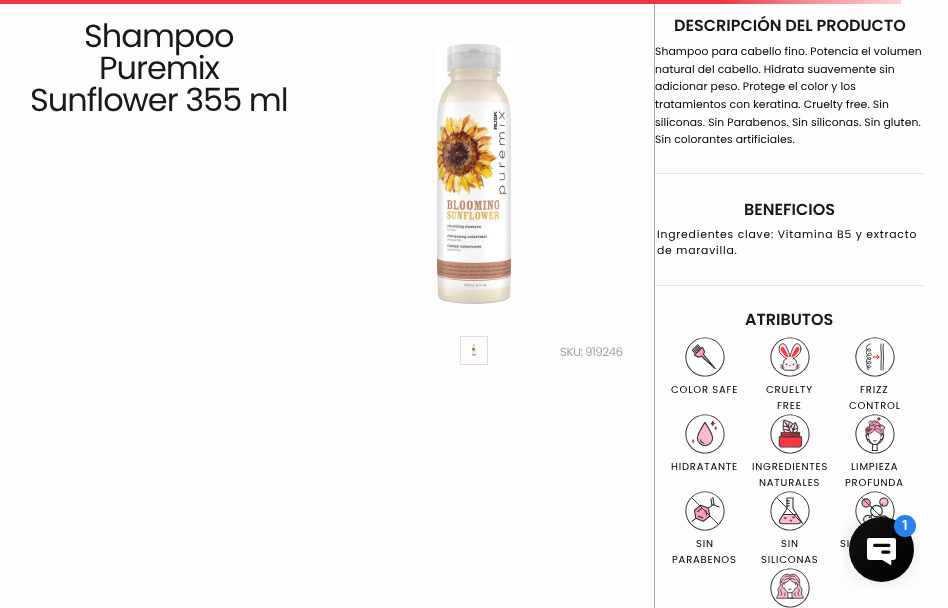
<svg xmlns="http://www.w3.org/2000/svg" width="948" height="608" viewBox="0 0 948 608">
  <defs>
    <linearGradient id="g1" gradientUnits="userSpaceOnUse" x1="0" y1="2" x2="901" y2="2"><stop offset="0.8" stop-color="#ed3642"/><stop offset="0.9" stop-color="#f59096"/><stop offset="1" stop-color="#fbd2d5"/></linearGradient>
  </defs>
  <rect width="100%" height="100%" fill="#fefcfc"/>
  <rect x="654" y="0" width="1" height="608" fill="#a7a7a7"/>
  <rect x="0" y="0" width="901" height="4" fill="url(#g1)"/>
  <text x="84" y="47" font-family="Poppins" font-size="32" letter-spacing="-1" fill="#191919">Shampoo</text>
  <text x="99" y="79" font-family="Poppins" font-size="32" letter-spacing="-1" fill="#191919">Puremix</text>
  <text x="30" y="111" font-family="Poppins" font-size="32" letter-spacing="-1" fill="#191919">Sunflower 355 ml</text>
  <rect x="655" y="173" width="269" height="1" fill="#e6e6e6"/>
  <text x="674" y="31" font-family="Poppins" font-size="16" font-weight="600" fill="#191919">DESCRIPCIÓN DEL PRODUCTO</text>
  <text x="655" y="55" font-family="Poppins" font-size="10.8" letter-spacing="0.1" fill="#000000">Shampoo para cabello fino. Potencia el volumen</text>
  <text x="655" y="73" font-family="Poppins" font-size="10.8" letter-spacing="0.1" fill="#000000">natural del cabello. Hidrata suavemente sin</text>
  <text x="655" y="90" font-family="Poppins" font-size="10.8" letter-spacing="0.1" fill="#000000">adicionar peso. Protege el color y los</text>
  <text x="655" y="108" font-family="Poppins" font-size="10.8" letter-spacing="0.1" fill="#000000">tratamientos con keratina. Cruelty free. Sin</text>
  <text x="655" y="126" font-family="Poppins" font-size="10.8" letter-spacing="0.1" fill="#000000">siliconas. Sin Parabenos. Sin siliconas. Sin gluten.</text>
  <text x="655" y="143" font-family="Poppins" font-size="10.8" letter-spacing="0.1" fill="#000000">Sin colorantes artificiales.</text>
  <rect x="655" y="285" width="269" height="1" fill="#e6e6e6"/>
  <text x="744" y="215" font-family="Poppins" font-size="16" font-weight="600" fill="#191919">BENEFICIOS</text>
  <text x="657" y="238" font-family="Poppins" font-size="10.8" letter-spacing="0.8" fill="#000000">Ingredientes clave: Vitamina B5 y extracto</text>
  <text x="657" y="254" font-family="Poppins" font-size="10.8" letter-spacing="0.8" fill="#000000">de maravilla.</text>
  <text x="745" y="325" font-family="Poppins" font-size="16" font-weight="600" fill="#191919">ATRIBUTOS</text>
  <image x="685" y="337" width="40" height="40" href="img1.png"/>
  <text x="671" y="393" font-family="Poppins" font-size="10" letter-spacing="0.8" fill="#000000">COLOR SAFE</text>
  <image x="770" y="337" width="40" height="40" href="img2.png"/>
  <text x="766" y="393" font-family="Poppins" font-size="10" letter-spacing="0.8" fill="#000000">CRUELTY</text>
  <text x="777" y="409" font-family="Poppins" font-size="10" letter-spacing="0.8" fill="#000000">FREE</text>
  <image x="855" y="337" width="40" height="40" href="img3.png"/>
  <text x="860" y="393" font-family="Poppins" font-size="10" letter-spacing="0.8" fill="#000000">FRIZZ</text>
  <text x="849" y="409" font-family="Poppins" font-size="10" letter-spacing="0.8" fill="#000000">CONTROL</text>
  <image x="685" y="414" width="40" height="40" href="img4.png"/>
  <text x="671" y="470" font-family="Poppins" font-size="10" letter-spacing="0.8" fill="#000000">HIDRATANTE</text>
  <image x="770" y="414" width="40" height="40" href="img5.png"/>
  <text x="752" y="470" font-family="Poppins" font-size="10" letter-spacing="0.8" fill="#000000">INGREDIENTES</text>
  <text x="759" y="486" font-family="Poppins" font-size="10" letter-spacing="0.8" fill="#000000">NATURALES</text>
  <image x="855" y="414" width="40" height="40" href="img6.png"/>
  <text x="851" y="470" font-family="Poppins" font-size="10" letter-spacing="0.8" fill="#000000">LIMPIEZA</text>
  <text x="845" y="486" font-family="Poppins" font-size="10" letter-spacing="0.8" fill="#000000">PROFUNDA</text>
  <image x="685" y="491" width="40" height="40" href="img7.png"/>
  <text x="696" y="547" font-family="Poppins" font-size="10" letter-spacing="0.8" fill="#000000">SIN</text>
  <text x="672" y="563" font-family="Poppins" font-size="10" letter-spacing="0.8" fill="#000000">PARABENOS</text>
  <image x="770" y="491" width="40" height="40" href="img8.png"/>
  <text x="781" y="547" font-family="Poppins" font-size="10" letter-spacing="0.8" fill="#000000">SIN</text>
  <text x="761" y="563" font-family="Poppins" font-size="10" letter-spacing="0.8" fill="#000000">SILICONAS</text>
  <image x="855" y="491" width="40" height="34" href="img9.png"/>
  <text x="840" y="547" font-family="Poppins" font-size="10" letter-spacing="0.8" fill="#000000">SI</text>
  <image x="770" y="568" width="40" height="40" href="img10.png"/>
  <image x="436" y="43" width="76" height="262" href="img11.png"/>
  <rect x="460.5" y="336.5" width="27" height="28" fill="none" stroke="#dedede"/>
  <image x="472" y="344" width="4" height="13" href="img12.png"/>
  <text x="560" y="356" font-family="Poppins" font-size="12" letter-spacing="-0.6" fill="#a7a7a7">SKU: 919246</text>
  <image x="843" y="511" width="77" height="77" href="img13.png"/>
</svg>
